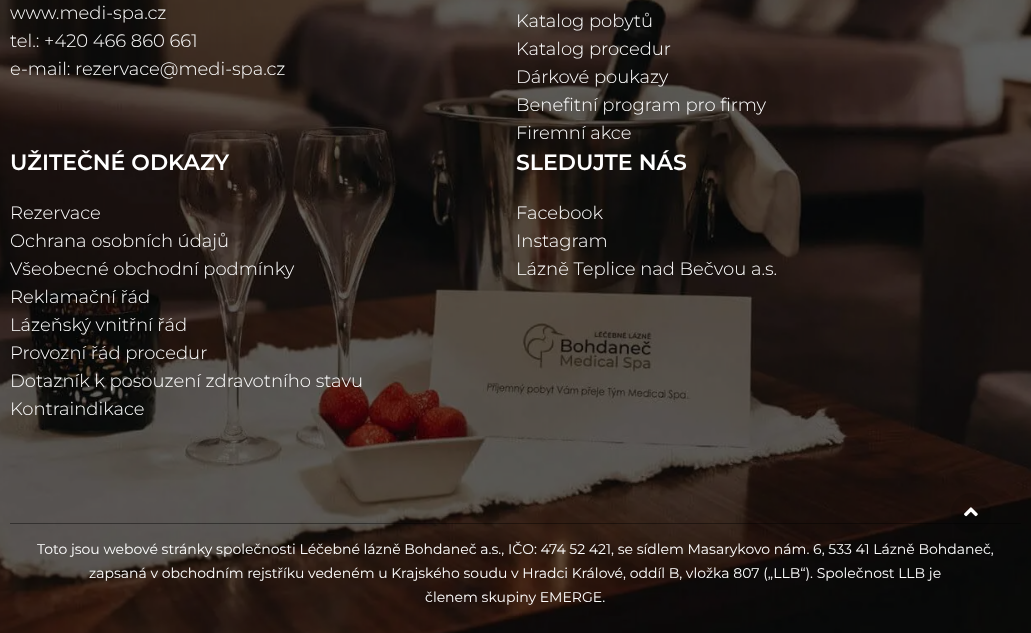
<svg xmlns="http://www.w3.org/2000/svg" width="1031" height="633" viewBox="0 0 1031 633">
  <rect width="100%" height="100%" fill="#ffffff"/>
  <image x="0" y="0" width="1031" height="633" href="img1.png"/>
  <text x="10" y="19" font-family="Montserrat" font-size="18" font-weight="300" fill="#ffffff">www.medi-spa.cz</text>
  <text x="10" y="47" font-family="Montserrat" font-size="18" font-weight="300" fill="#ffffff">tel.: +420 466 860 661</text>
  <text x="10" y="75" font-family="Montserrat" font-size="18" font-weight="300" fill="#ffffff">e-mail: rezervace@medi-spa.cz</text>
  <text x="516" y="27" font-family="Montserrat" font-size="18" font-weight="300" fill="#ffffff">Katalog pobytů</text>
  <text x="516" y="55" font-family="Montserrat" font-size="18" font-weight="300" fill="#ffffff">Katalog procedur</text>
  <text x="516" y="83" font-family="Montserrat" font-size="18" font-weight="300" fill="#ffffff">Dárkové poukazy</text>
  <text x="516" y="111" font-family="Montserrat" font-size="18" font-weight="300" fill="#ffffff">Benefitní program pro firmy</text>
  <text x="516" y="139" font-family="Montserrat" font-size="18" font-weight="300" fill="#ffffff">Firemní akce</text>
  <text x="10" y="170" font-family="Montserrat" font-size="22" font-weight="600" fill="#ffffff">UŽITEČNÉ ODKAZY</text>
  <text x="10" y="219" font-family="Montserrat" font-size="18" font-weight="300" fill="#ffffff">Rezervace</text>
  <text x="10" y="247" font-family="Montserrat" font-size="18" font-weight="300" fill="#ffffff">Ochrana osobních údajů</text>
  <text x="10" y="275" font-family="Montserrat" font-size="18" font-weight="300" fill="#ffffff">Všeobecné obchodní podmínky</text>
  <text x="10" y="303" font-family="Montserrat" font-size="18" font-weight="300" fill="#ffffff">Reklamační řád</text>
  <text x="10" y="331" font-family="Montserrat" font-size="18" font-weight="300" fill="#ffffff">Lázeňský vnitřní řád</text>
  <text x="10" y="359" font-family="Montserrat" font-size="18" font-weight="300" fill="#ffffff">Provozní řád procedur</text>
  <text x="10" y="387" font-family="Montserrat" font-size="18" font-weight="300" fill="#ffffff">Dotazník k posouzení zdravotního stavu</text>
  <text x="10" y="415" font-family="Montserrat" font-size="18" font-weight="300" fill="#ffffff">Kontraindikace</text>
  <text x="516" y="170" font-family="Montserrat" font-size="22" font-weight="600" fill="#ffffff">SLEDUJTE NÁS</text>
  <text x="516" y="219" font-family="Montserrat" font-size="18" font-weight="300" fill="#ffffff">Facebook</text>
  <text x="516" y="247" font-family="Montserrat" font-size="18" font-weight="300" fill="#ffffff">Instagram</text>
  <text x="516" y="275" font-family="Montserrat" font-size="18" font-weight="300" fill="#ffffff">Lázně Teplice nad Bečvou a.s.</text>
  <rect x="10" y="523" width="1011" height="1" fill="#000000" fill-opacity="0.4"/>
  <text x="37" y="554" font-family="Montserrat" font-size="14" fill="#ffffff">Toto jsou webové stránky společnosti Léčebné lázně Bohdaneč a.s., IČO: 474 52 421, se sídlem Masarykovo nám. 6, 533 41 Lázně Bohdaneč,</text>
  <text x="89" y="578" font-family="Montserrat" font-size="14" fill="#ffffff">zapsaná v obchodním rejstříku vedeném u Krajského soudu v Hradci Králové, oddíl B, vložka 807 („LLB“). Společnost LLB je</text>
  <text x="425" y="602" font-family="Montserrat" font-size="14" fill="#ffffff">členem skupiny EMERGE.</text>
  <circle cx="971" cy="513" r="20" fill="#000000" fill-opacity="0.1"/>
  <image x="964" y="507" width="14" height="10" href="img2.png"/>
</svg>
